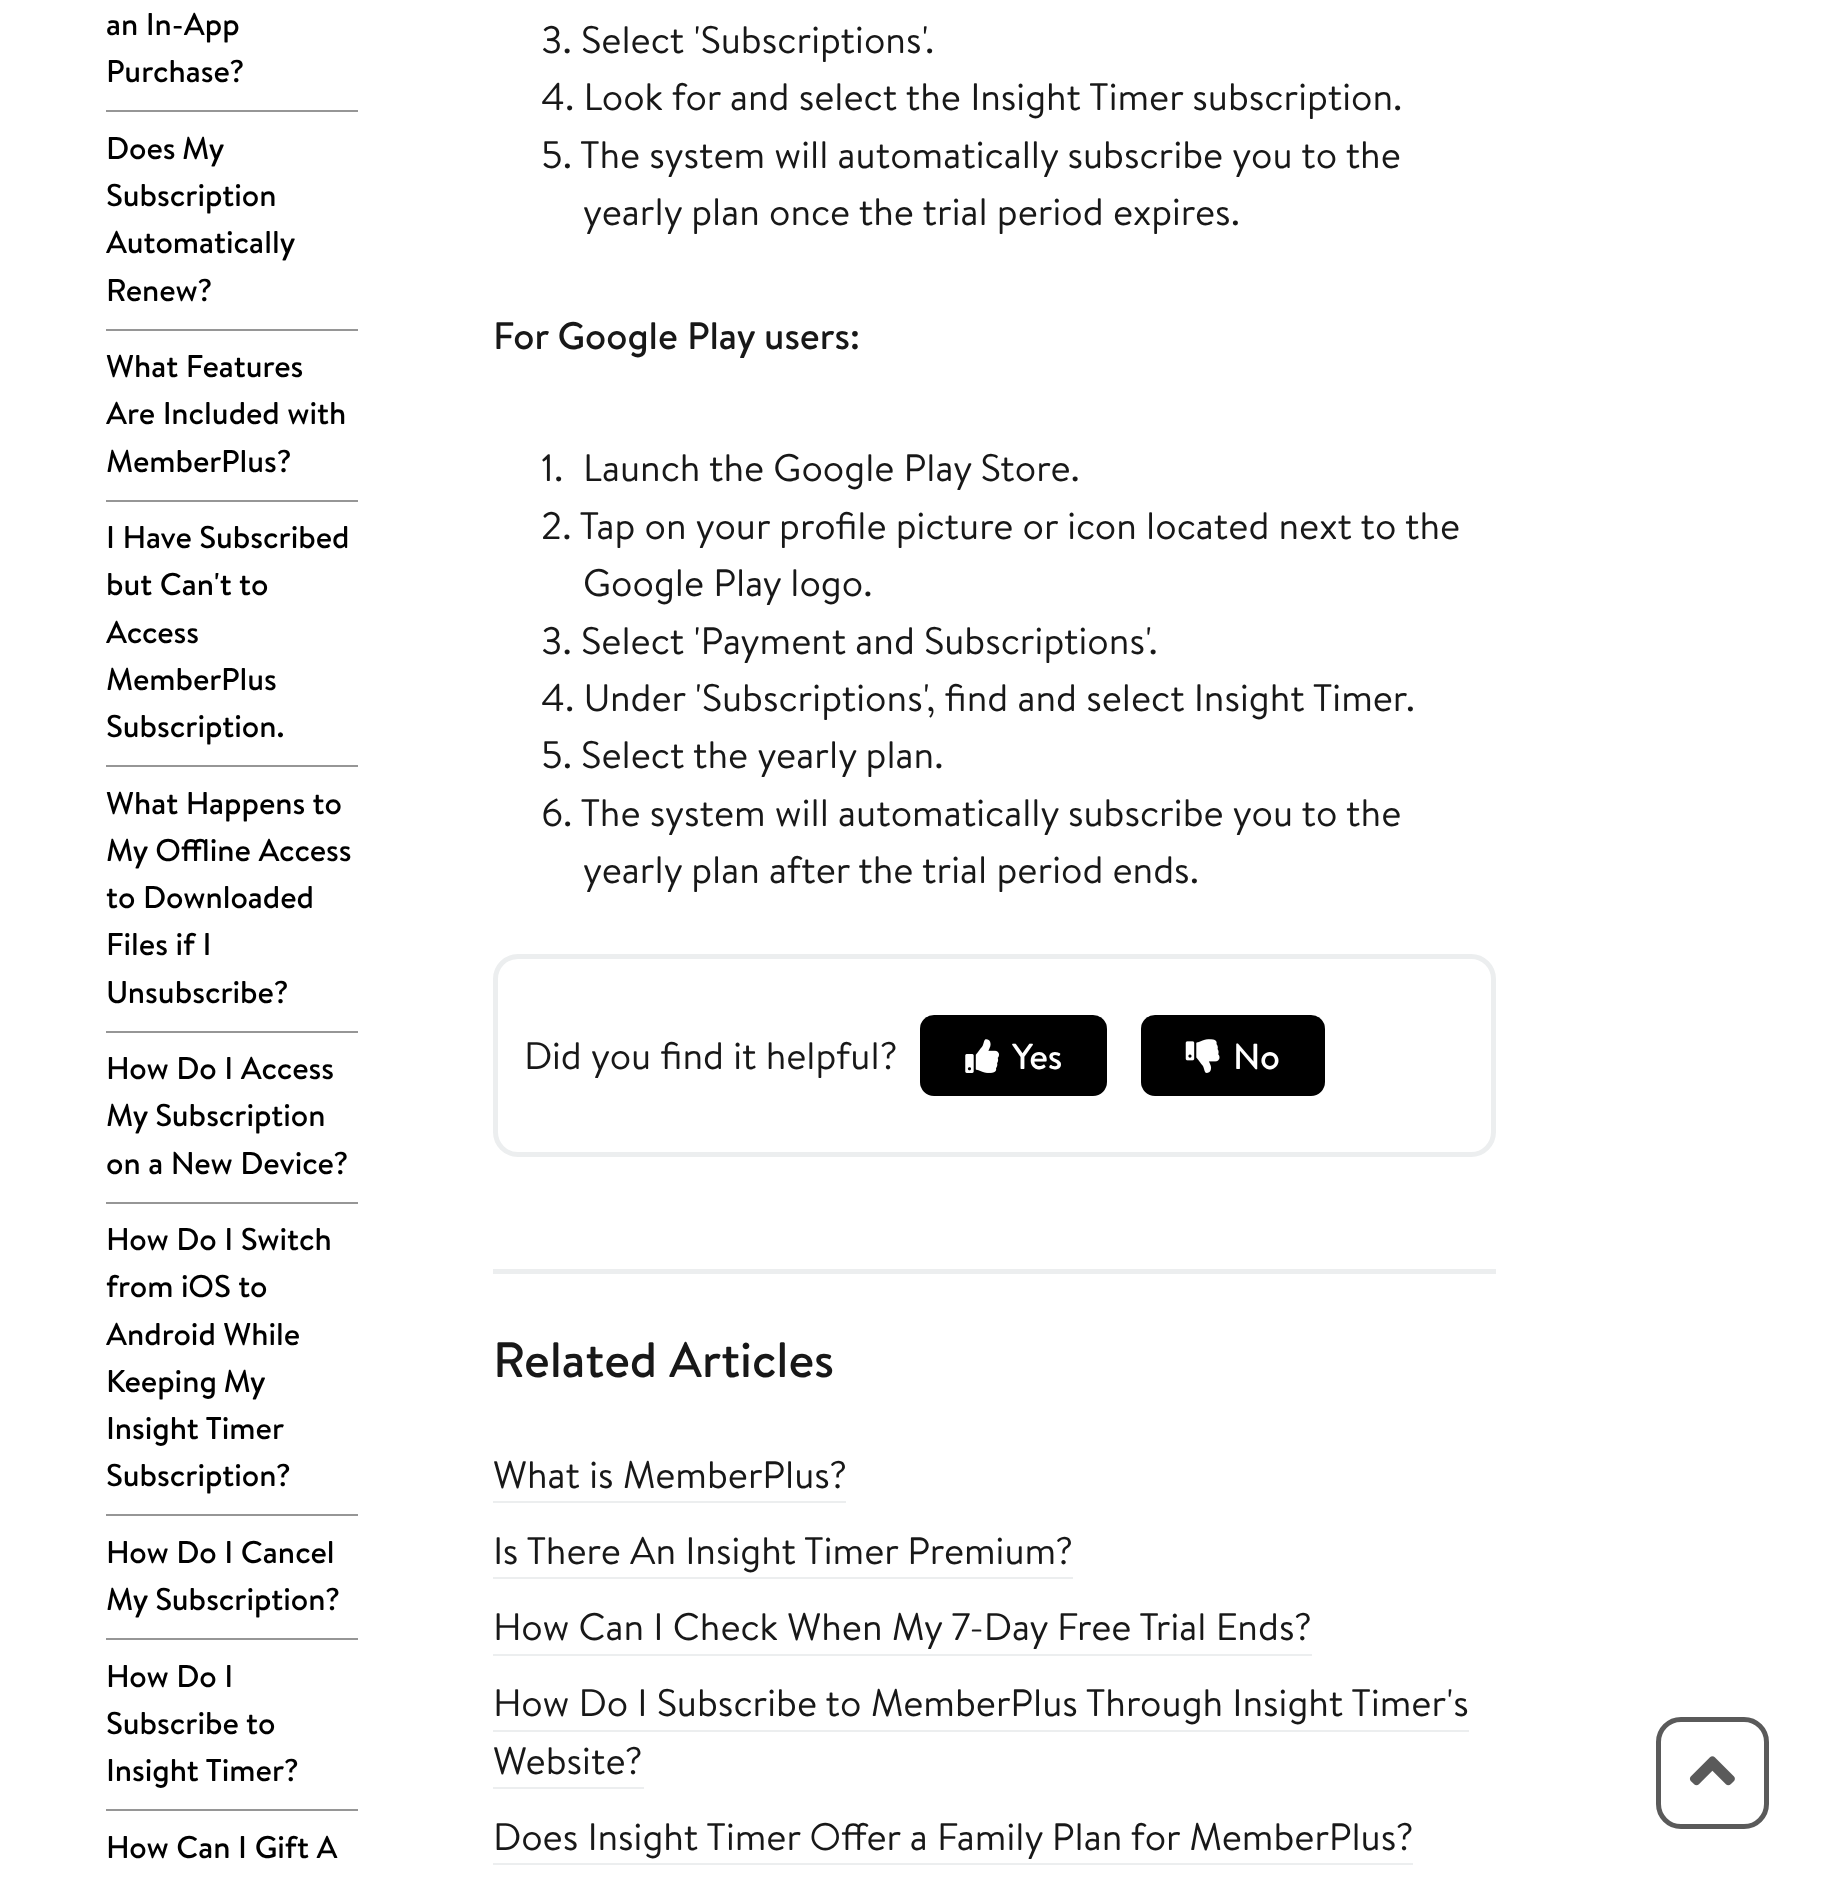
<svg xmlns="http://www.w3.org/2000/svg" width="1834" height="1895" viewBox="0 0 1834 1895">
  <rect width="100%" height="100%" fill="#ffffff"/>
  <text x="106" y="35" font-family="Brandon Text" font-size="31.5" font-weight="500" fill="#000000">an In-App</text>
  <text x="106" y="82" font-family="Brandon Text" font-size="31.5" font-weight="500" fill="#000000">Purchase?</text>
  <rect x="106" y="110" width="252" height="2" fill="#969696"/>
  <text x="106" y="159" word-spacing="-1" font-family="Brandon Text" font-size="31.5" font-weight="500" fill="#000000">Does My</text>
  <text x="106" y="206" font-family="Brandon Text" font-size="31.5" font-weight="500" fill="#000000">Subscription</text>
  <text x="106" y="253" font-family="Brandon Text" font-size="31.5" font-weight="500" fill="#000000">Automatically</text>
  <text x="106" y="301" font-family="Brandon Text" font-size="31.5" font-weight="500" fill="#000000">Renew?</text>
  <rect x="106" y="329" width="252" height="2" fill="#969696"/>
  <text x="106" y="377" font-family="Brandon Text" font-size="31.5" font-weight="500" fill="#000000">What Features</text>
  <text x="106" y="424" font-family="Brandon Text" font-size="31.5" font-weight="500" fill="#000000">Are Included with</text>
  <text x="106" y="472" font-family="Brandon Text" font-size="31.5" font-weight="500" fill="#000000">MemberPlus?</text>
  <rect x="106" y="500" width="252" height="2" fill="#969696"/>
  <text x="106" y="548" font-family="Brandon Text" font-size="31.5" font-weight="500" fill="#000000">I Have Subscribed</text>
  <text x="106" y="595" font-family="Brandon Text" font-size="31.5" font-weight="500" fill="#000000">but Can't to</text>
  <text x="106" y="643" font-family="Brandon Text" font-size="31.5" font-weight="500" fill="#000000">Access</text>
  <text x="106" y="690" font-family="Brandon Text" font-size="31.5" font-weight="500" fill="#000000">MemberPlus</text>
  <text x="106" y="737" font-family="Brandon Text" font-size="31.5" font-weight="500" fill="#000000">Subscription.</text>
  <rect x="106" y="765" width="252" height="2" fill="#969696"/>
  <text x="106" y="814" font-family="Brandon Text" font-size="31.5" font-weight="500" fill="#000000">What Happens to</text>
  <text x="106" y="861" font-family="Brandon Text" font-size="31.5" font-weight="500" fill="#000000">My Offline Access</text>
  <text x="106" y="908" font-family="Brandon Text" font-size="31.5" font-weight="500" fill="#000000">to Downloaded</text>
  <text x="106" y="955" font-family="Brandon Text" font-size="31.5" font-weight="500" fill="#000000">Files if I</text>
  <text x="106" y="1003" font-family="Brandon Text" font-size="31.5" font-weight="500" fill="#000000">Unsubscribe?</text>
  <rect x="106" y="1031" width="252" height="2" fill="#969696"/>
  <text x="106" y="1079" font-family="Brandon Text" font-size="31.5" font-weight="500" fill="#000000">How Do I Access</text>
  <text x="106" y="1126" font-family="Brandon Text" font-size="31.5" font-weight="500" fill="#000000">My Subscription</text>
  <text x="106" y="1174" font-family="Brandon Text" font-size="31.5" font-weight="500" fill="#000000">on a New Device?</text>
  <rect x="106" y="1202" width="252" height="2" fill="#969696"/>
  <text x="106" y="1250" font-family="Brandon Text" font-size="31.5" font-weight="500" fill="#000000">How Do I Switch</text>
  <text x="106" y="1297" font-family="Brandon Text" font-size="31.5" font-weight="500" fill="#000000">from iOS to</text>
  <text x="106" y="1345" font-family="Brandon Text" font-size="31.5" font-weight="500" fill="#000000">Android While</text>
  <text x="106" y="1392" word-spacing="-1" font-family="Brandon Text" font-size="31.5" font-weight="500" fill="#000000">Keeping My</text>
  <text x="106" y="1439" font-family="Brandon Text" font-size="31.5" font-weight="500" fill="#000000">Insight Timer</text>
  <text x="106" y="1486" font-family="Brandon Text" font-size="31.5" font-weight="500" fill="#000000">Subscription?</text>
  <rect x="106" y="1514" width="252" height="2" fill="#969696"/>
  <text x="106" y="1563" font-family="Brandon Text" font-size="31.5" font-weight="500" fill="#000000">How Do I Cancel</text>
  <text x="106" y="1610" font-family="Brandon Text" font-size="31.5" font-weight="500" fill="#000000">My Subscription?</text>
  <rect x="106" y="1638" width="252" height="2" fill="#969696"/>
  <text x="106" y="1687" font-family="Brandon Text" font-size="31.5" font-weight="500" fill="#000000">How Do I</text>
  <text x="106" y="1734" font-family="Brandon Text" font-size="31.5" font-weight="500" fill="#000000">Subscribe to</text>
  <text x="106" y="1781" font-family="Brandon Text" font-size="31.5" font-weight="500" fill="#000000">Insight Timer?</text>
  <rect x="106" y="1809" width="252" height="2" fill="#969696"/>
  <text x="106" y="1858" font-family="Brandon Text" font-size="31.5" font-weight="500" fill="#000000">How Can I Gift A</text>
  <text x="541" y="53" font-family="Brandon Text" font-size="38.25" fill="#181818">3. Select 'Subscriptions'.</text>
  <text x="541" y="110" font-family="Brandon Text" font-size="38.25" fill="#181818">4. Look for and select the Insight Timer subscription.</text>
  <text x="541" y="168" font-family="Brandon Text" font-size="38.25" fill="#181818">5. The system will automatically subscribe you to the</text>
  <text x="583" y="225" font-family="Brandon Text" font-size="38.25" fill="#181818">yearly plan once the trial period expires.</text>
  <text x="493" y="349" font-family="Brandon Text" font-size="38.25" font-weight="500" fill="#181818">For Google Play users:</text>
  <text x="541" y="481" font-family="Brandon Text" font-size="38.25" fill="#181818">1.</text>
  <text x="583" y="481" font-family="Brandon Text" font-size="38.25" fill="#181818">Launch the Google Play Store.</text>
  <text x="541" y="539" font-family="Brandon Text" font-size="38.25" fill="#181818">2. Tap on your profile picture or icon located next to the</text>
  <text x="583" y="596" font-family="Brandon Text" font-size="38.25" fill="#181818">Google Play logo.</text>
  <text x="541" y="654" font-family="Brandon Text" font-size="38.25" fill="#181818">3. Select 'Payment and Subscriptions'.</text>
  <text x="541" y="711" font-family="Brandon Text" font-size="38.25" fill="#181818">4. Under 'Subscriptions', find and select Insight Timer.</text>
  <text x="541" y="768" font-family="Brandon Text" font-size="38.25" fill="#181818">5. Select the yearly plan.</text>
  <text x="541" y="826" font-family="Brandon Text" font-size="38.25" fill="#181818">6. The system will automatically subscribe you to the</text>
  <text x="583" y="883" font-family="Brandon Text" font-size="38.25" fill="#181818">yearly plan after the trial period ends.</text>
  <rect x="495.5" y="956.5" width="998" height="198" rx="22.5" fill="none" stroke="#eceeef" stroke-width="5"/>
  <text x="524" y="1069" font-family="Brandon Text" font-size="38.25" fill="#181818">Did you find it helpful?</text>
  <rect x="920" y="1015" width="187" height="81" rx="14" fill="#000000"/>
  <image x="965" y="1039" width="34" height="34" href="img1.png"/>
  <text x="1012" y="1069" font-family="Brandon Text" font-size="36" font-weight="500" fill="#ffffff">Yes</text>
  <rect x="1141" y="1015" width="184" height="81" rx="14" fill="#000000"/>
  <image x="1185" y="1039" width="35" height="34" href="img2.png"/>
  <text x="1233" y="1069" font-family="Brandon Text" font-size="36" font-weight="500" fill="#ffffff">No</text>
  <rect x="493" y="1269" width="1003" height="5" fill="#eceeef"/>
  <text x="493" y="1377" font-family="Brandon Text" font-size="49.5" font-weight="500" fill="#181818">Related Articles</text>
  <text x="493" y="1488" font-family="Brandon Text" font-size="38.25" fill="#181818">What is MemberPlus?</text>
  <rect x="493" y="1501" width="353" height="2" fill="#eceeef"/>
  <text x="493" y="1564" font-family="Brandon Text" font-size="38.25" fill="#181818">Is There An Insight Timer Premium?</text>
  <rect x="493" y="1577" width="580" height="2" fill="#eceeef"/>
  <text x="493" y="1640" font-family="Brandon Text" font-size="38.25" fill="#181818">How Can I Check When My 7-Day Free Trial Ends?</text>
  <rect x="493" y="1654" width="819" height="2" fill="#eceeef"/>
  <text x="493" y="1716" font-family="Brandon Text" font-size="38.25" fill="#181818">How Do I Subscribe to MemberPlus Through Insight Timer's</text>
  <rect x="493" y="1730" width="976" height="2" fill="#eceeef"/>
  <text x="493" y="1774" font-family="Brandon Text" font-size="38.25" fill="#181818">Website?</text>
  <rect x="493" y="1787" width="151" height="2" fill="#eceeef"/>
  <text x="493" y="1850" font-family="Brandon Text" font-size="38.25" fill="#181818">Does Insight Timer Offer a Family Plan for MemberPlus?</text>
  <rect x="493" y="1863" width="920" height="2" fill="#eceeef"/>
  <rect x="1658.5" y="1719.5" width="108" height="107" rx="22.5" fill="none" stroke="#5a5a5a" stroke-width="5"/>
  <image x="1689" y="1756" width="46" height="30" href="img3.png"/>
</svg>
